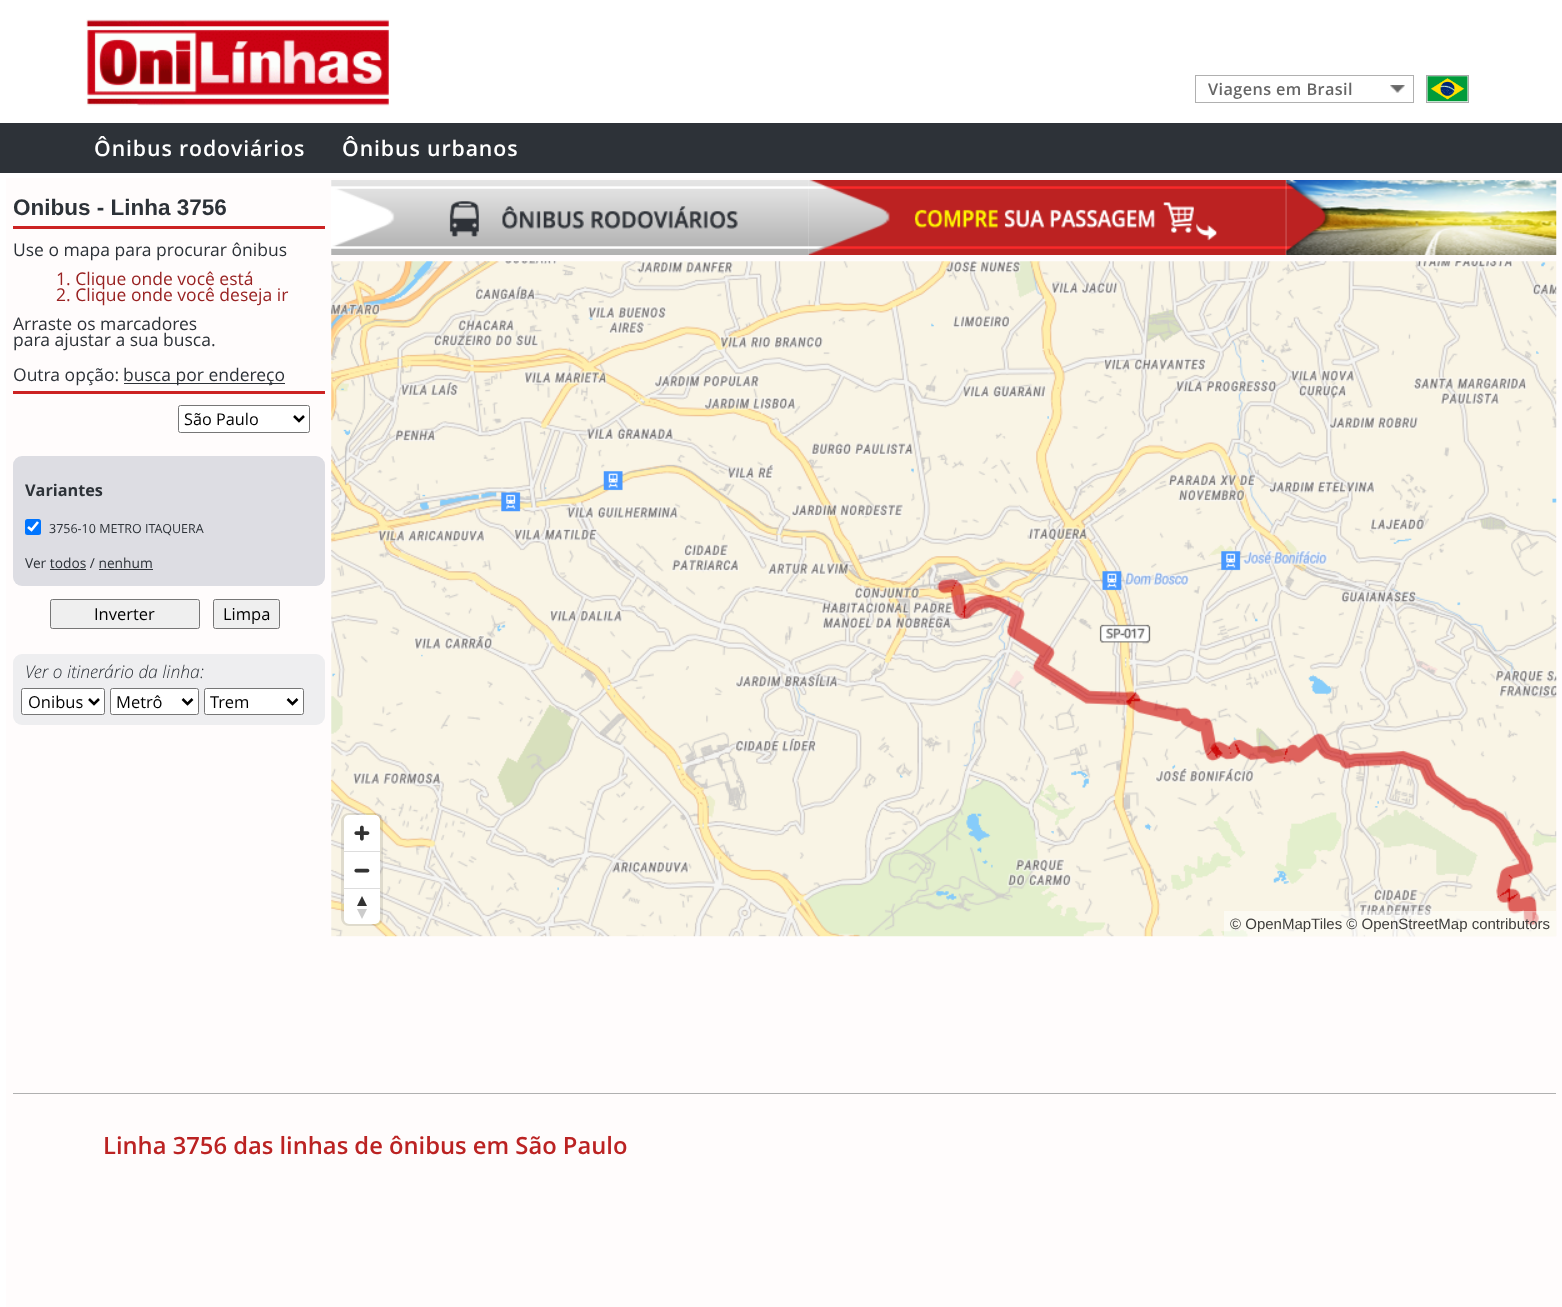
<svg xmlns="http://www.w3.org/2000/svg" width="1562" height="1307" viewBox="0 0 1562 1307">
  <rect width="100%" height="100%" fill="#ffffff"/>
  <image x="86" y="19" width="303" height="87" href="img1.png"/>
  <image x="1390" y="85" width="15" height="8" href="img2.png"/>
  <rect x="1195.5" y="75.5" width="218" height="27" fill="none" stroke="#b0b0b0"/>
  <text x="1208" y="95" font-family="Open Sans" font-size="16.25" font-weight="600" letter-spacing="0.4" fill="#666666">Viagens em Brasil</text>
  <rect x="1426.5" y="75.5" width="42" height="27" fill="none" stroke="#aaaaaa"/>
  <image x="1427" y="76" width="41" height="26" href="img3.png"/>
  <rect x="0" y="123" width="1562" height="50" fill="#2d3238"/>
  <text x="94" y="156" font-family="Open Sans" font-size="21.25" font-weight="600" letter-spacing="0.9" fill="#ffffff">Ônibus rodoviários</text>
  <text x="342" y="156" font-family="Open Sans" font-size="21.25" font-weight="600" letter-spacing="0.9" fill="#ffffff">Ônibus urbanos</text>
  <rect x="6" y="178" width="1556" height="1129" fill="#fffcfc"/>
  <rect x="13" y="226" width="312" height="3" fill="#cc2222"/>
  <text x="13" y="215" font-family="Liberation Sans" font-size="22.5" font-weight="bold" fill="#2d3238">Onibus - Linha 3756</text>
  <text x="13" y="256" font-family="Open Sans" font-size="17.5" fill="#2d3238">Use o mapa para procurar ônibus</text>
  <text x="56" y="285" font-family="Open Sans" font-size="17.5" fill="#992222">1. Clique onde você está</text>
  <text x="56" y="301" font-family="Open Sans" font-size="17.5" fill="#992222">2. Clique onde você deseja ir</text>
  <text x="13" y="330" font-family="Open Sans" font-size="17.5" fill="#2d3238">Arraste os marcadores</text>
  <text x="13" y="346" font-family="Open Sans" font-size="17.5" fill="#2d3238">para ajustar a sua busca.</text>
  <text x="13" y="381" font-family="Open Sans" font-size="17.5" fill="#2d3238">Outra opção:</text>
  <rect x="124" y="383" width="161" height="1" fill="#2d3238"/>
  <text x="123" y="381" font-family="Open Sans" font-size="17.5" fill="#2d3238">busca por endereço</text>
  <rect x="13" y="391" width="312" height="3" fill="#cc2222"/>
  <rect x="178.5" y="405.5" width="131" height="27" rx="2" fill="#ffffff" stroke="#767676"/>
  <path d="M294 416L299 421L304 416" fill="none" stroke="#000000" stroke-width="2.5"/>
  <text x="184" y="425" font-family="Open Sans" font-size="16.25" fill="#000000">São Paulo</text>
  <rect x="13" y="456" width="312" height="130" rx="9" fill="#dddde3"/>
  <text x="25" y="496" font-family="Open Sans" font-size="16.25" font-weight="bold" fill="#2d3238">Variantes</text>
  <rect x="25" y="519" width="16" height="16" rx="2.5" fill="#0075ff"/>
  <path d="M28 527L31.5 530L38 522" fill="none" stroke="#ffffff" stroke-width="2.6"/>
  <text x="49" y="533" font-family="Open Sans" font-size="12.5" fill="#2d3238">3756-10 METRO ITAQUERA</text>
  <text x="25" y="568" font-family="Open Sans" font-size="13.75" fill="#2d3238">Ver todos / nenhum</text>
  <rect x="50" y="569" width="36" height="1" fill="#2d3238"/>
  <rect x="99" y="569" width="54" height="1" fill="#2d3238"/>
  <rect x="50.5" y="599.5" width="149" height="29" rx="2" fill="#efefef" stroke="#767676"/>
  <text x="94" y="620" font-family="Open Sans" font-size="16.5" fill="#000000">Inverter</text>
  <rect x="213.5" y="599.5" width="66" height="29" rx="2" fill="#efefef" stroke="#767676"/>
  <text x="223" y="620" font-family="Open Sans" font-size="16.5" fill="#000000">Limpa</text>
  <rect x="13" y="654" width="312" height="71" rx="9" fill="#eeeef0"/>
  <text x="25" y="678" font-family="Open Sans" font-size="17.5" font-weight="300" font-style="italic" fill="#2d3238">Ver o itinerário da linha:</text>
  <rect x="21.5" y="688.5" width="83" height="26" rx="2" fill="#ffffff" stroke="#767676"/>
  <path d="M89 699L94 704L99 699" fill="none" stroke="#000000" stroke-width="2.5"/>
  <text x="28" y="708" font-family="Open Sans" font-size="16.5" fill="#000000">Onibus</text>
  <rect x="110.5" y="688.5" width="88" height="26" rx="2" fill="#ffffff" stroke="#767676"/>
  <path d="M182.5 699L187.5 704L192.5 699" fill="none" stroke="#000000" stroke-width="2.5"/>
  <text x="116" y="708" font-family="Open Sans" font-size="16.5" fill="#000000">Metrô</text>
  <rect x="204.5" y="688.5" width="99" height="26" rx="2" fill="#ffffff" stroke="#767676"/>
  <path d="M287.5 699L292.5 704L297.5 699" fill="none" stroke="#000000" stroke-width="2.5"/>
  <text x="210" y="708" font-family="Open Sans" font-size="16.5" fill="#000000">Trem</text>
  <image x="331" y="180" width="478" height="75" href="img4.png"/>
  <image x="449" y="201" width="289" height="36" href="img5.png"/>
  <image x="808" y="180" width="479" height="75" href="img6.png"/>
  <image x="914" y="202" width="303" height="39" href="img7.png"/>
  <image x="1286" y="180" width="271" height="75" href="img8.png"/>
  <image x="331" y="261" width="1226" height="676" href="img9.png"/>
  <rect x="342.5" y="814.5" width="39" height="110" rx="6.5" fill="none" stroke="#000000" stroke-opacity="0.1" stroke-width="3"/>
  <rect x="344" y="815" width="36" height="109" rx="5" fill="#ffffff"/>
  <image x="354" y="825" width="16" height="16" href="img10.png"/>
  <rect x="344" y="851" width="36" height="1" fill="#dddddd"/>
  <image x="354" y="868" width="16" height="5" href="img11.png"/>
  <rect x="344" y="888" width="36" height="1" fill="#dddddd"/>
  <path d="M357 906L362 896L367 906Z" fill="#333333"/>
  <path d="M357 909L362 919L367 909Z" fill="#cccccc"/>
  <rect x="1224" y="911" width="332" height="25" fill="#ffffff" fill-opacity="0.5"/>
  <text x="1230" y="929" font-family="Liberation Sans" font-size="15" fill="#3f3e3c">© OpenMapTiles © OpenStreetMap contributors</text>
  <rect x="13" y="1093" width="1543" height="1" fill="#b0b0b0"/>
  <text x="103" y="1154" font-family="Open Sans" font-size="23.75" font-weight="600" fill="#bb2222">Linha 3756 das linhas de ônibus em São Paulo</text>
</svg>
